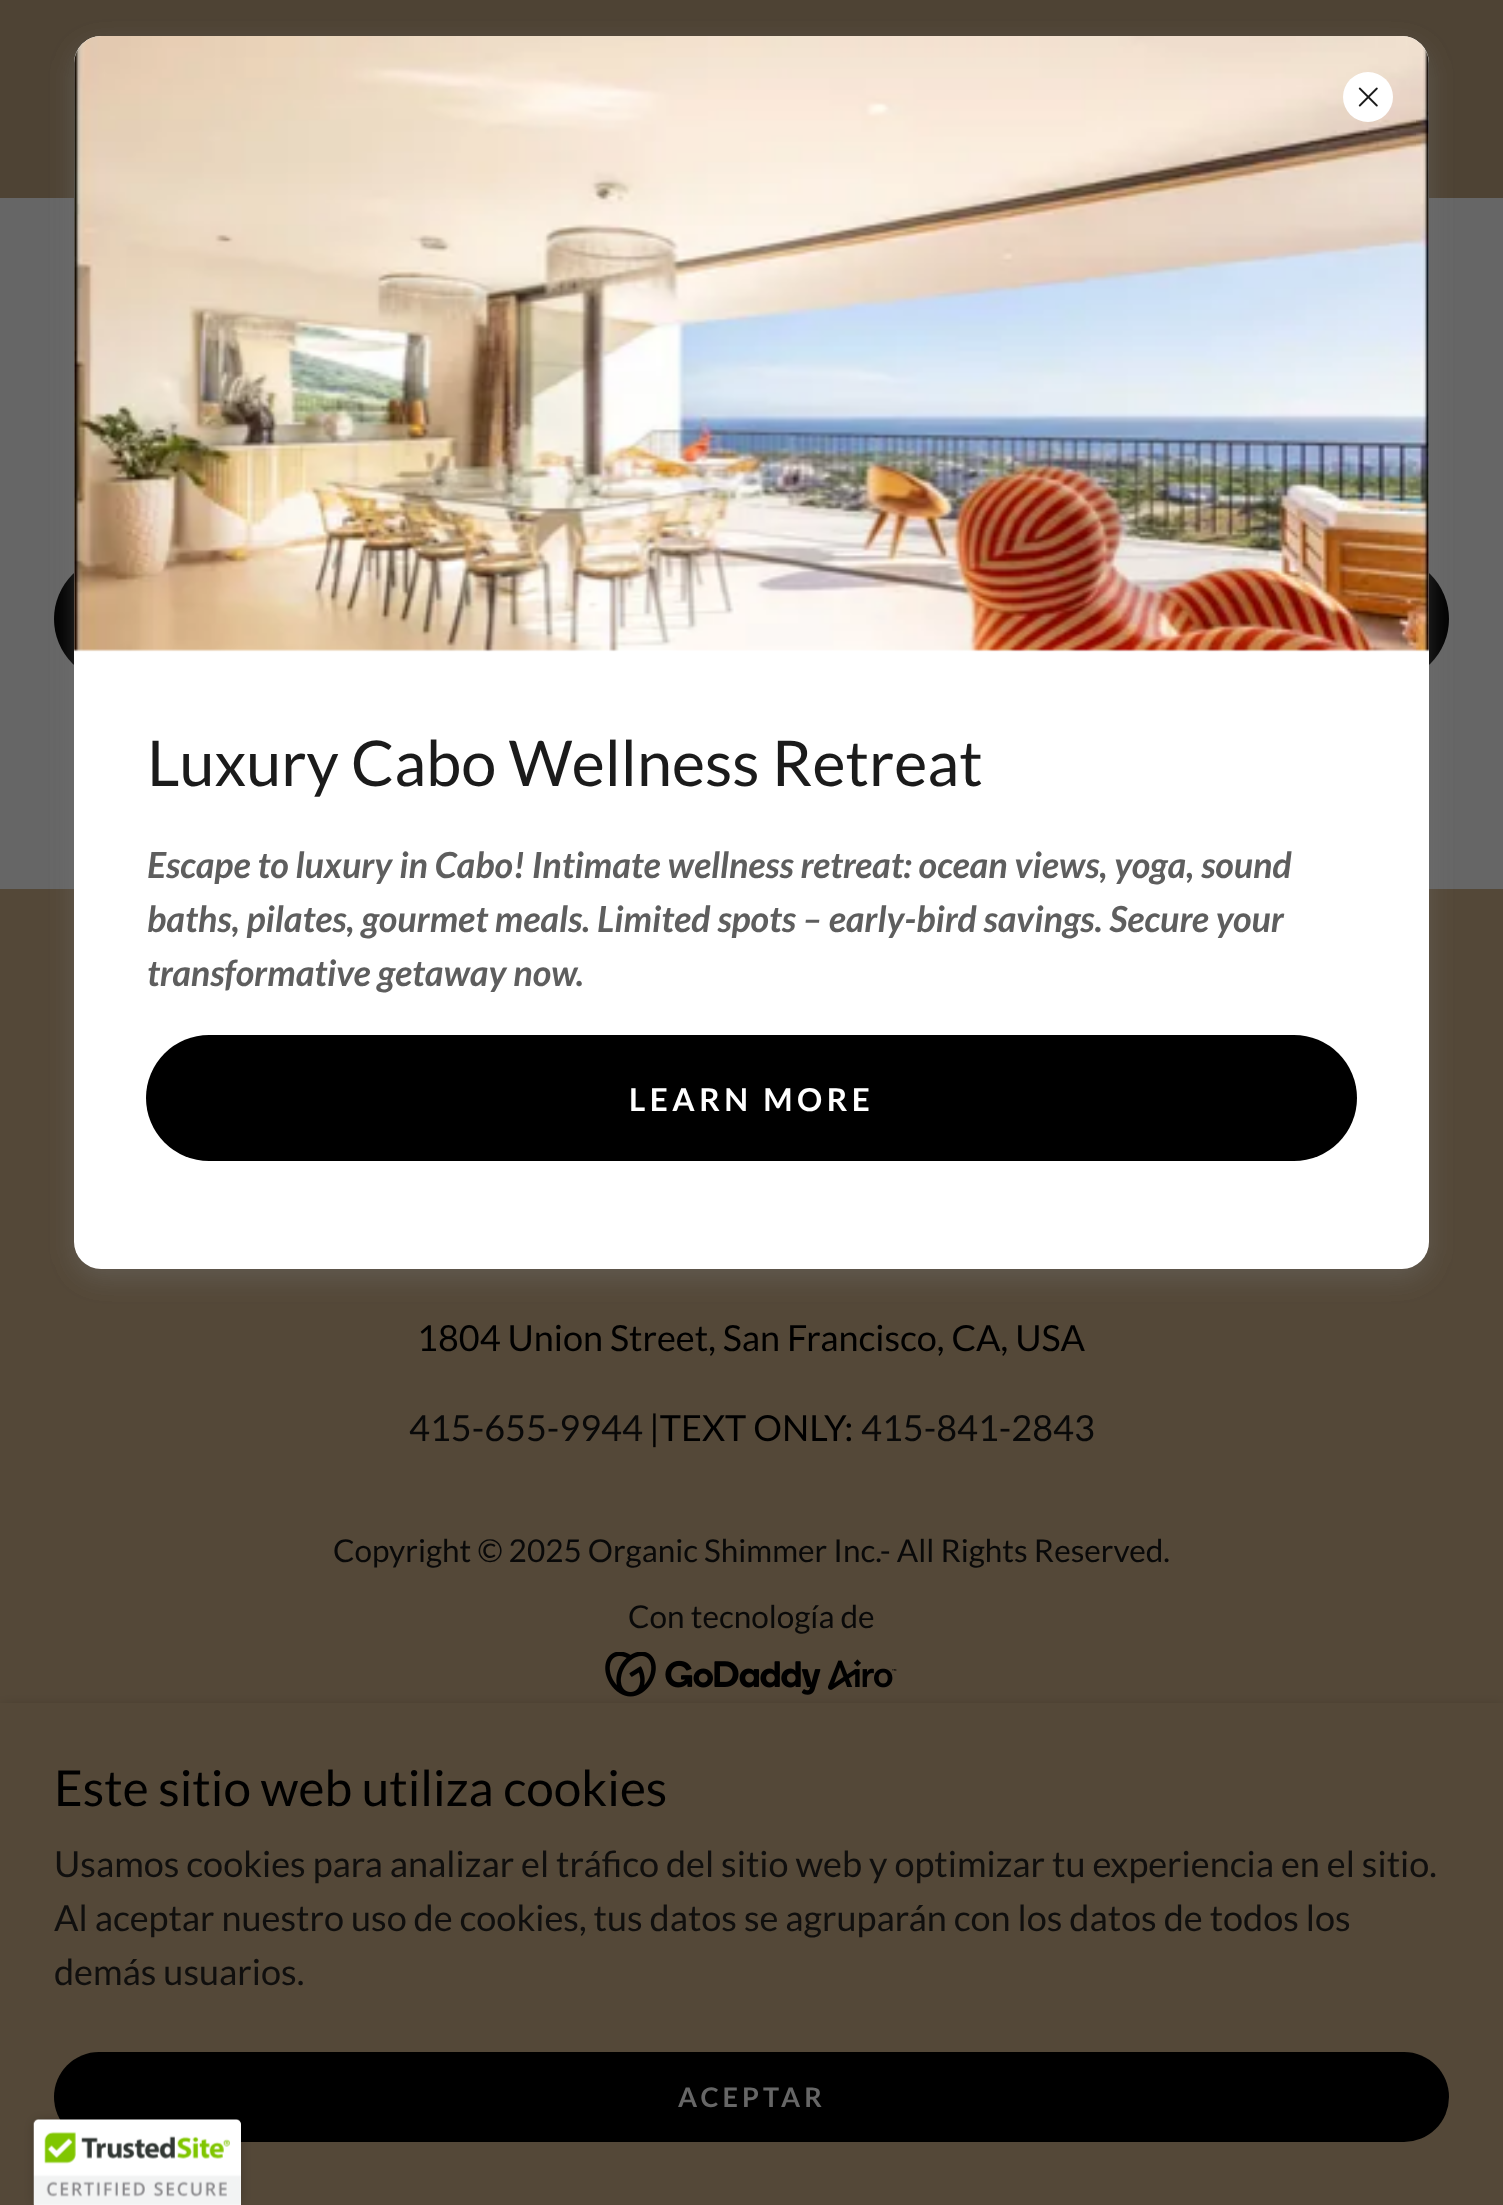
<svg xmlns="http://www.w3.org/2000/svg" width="1503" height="2205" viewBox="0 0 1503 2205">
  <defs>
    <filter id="blur1" x="-50%" y="-200%" width="200%" height="500%"><feGaussianBlur stdDeviation="13.5"/></filter>
    <filter id="blur2" x="-50%" y="-200%" width="200%" height="500%"><feGaussianBlur stdDeviation="7"/></filter>
    <filter id="blur3" x="-50%" y="-200%" width="200%" height="500%"><feGaussianBlur stdDeviation="5.5"/></filter>
  </defs>
  <rect width="100%" height="100%" fill="#544838"/>
  <rect x="0" y="0" width="1503" height="198" fill="#4e4334"/>
  <rect x="0" y="198" width="1503" height="691" fill="#666666"/>
  <rect x="54" y="556" width="1395" height="126" rx="63" fill="#000000"/>
  <rect x="74" y="45" width="1355" height="1233" rx="27" fill="#757575" fill-opacity="0.4" filter="url(#blur1)"/>
  <rect x="74" y="36" width="1355" height="1233" rx="27" fill="#ffffff"/>
  <image x="74" y="36" width="1355" height="616" href="img2.png"/>
  <circle cx="1368" cy="97" r="25" fill="#ffffff"/>
  <image x="1358" y="87" width="20" height="20" href="img1.png"/>
  <text x="147" y="786" font-family="Lato" font-size="63" fill="#1b1b1b">Luxury Cabo Wellness Retreat</text>
  <text x="147" y="878" font-family="Lato" font-size="36" font-weight="bold" font-style="italic" fill="#5e5e5e">Escape to luxury in Cabo! Intimate wellness retreat: ocean views, yoga, sound</text>
  <text x="147" y="932" font-family="Lato" font-size="36" font-weight="bold" font-style="italic" fill="#5e5e5e">baths, pilates, gourmet meals. Limited spots – early-bird savings. Secure your</text>
  <text x="147" y="986" font-family="Lato" font-size="36" font-weight="bold" font-style="italic" fill="#5e5e5e">transformative getaway now.</text>
  <rect x="146" y="1035" width="1211" height="126" rx="63" fill="#000000"/>
  <text x="629" y="1111" font-family="Lato" font-size="31.5" font-weight="bold" letter-spacing="4.5" fill="#ffffff">LEARN MORE</text>
  <text x="417" y="1351" font-family="Lato" font-size="36" fill="#000000">1804 Union Street, San Francisco, CA, USA</text>
  <text x="409" y="1441" font-family="Lato" font-size="36" fill="#090909">415-655-9944</text>
  <text x="649" y="1441" font-family="Lato" font-size="36" fill="#000000">|TEXT ONLY:</text>
  <text x="861" y="1441" font-family="Lato" font-size="36" fill="#090909">415-841-2843</text>
  <text x="333" y="1562" font-family="Lato" font-size="31.5" fill="#090909">Copyright © 2025 Organic Shimmer Inc.- All Rights Reserved.</text>
  <text x="628" y="1628" font-family="Lato" font-size="31.5" fill="#090909">Con tecnología de</text>
  <image x="605" y="1652" width="292" height="45" href="img3.png"/>
  <rect x="0" y="1708" width="1503" height="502" fill="#000000" fill-opacity="0.3" filter="url(#blur2)"/>
  <rect x="0" y="1703" width="1503" height="502" fill="#544838"/>
  <text x="54" y="1806" font-family="Lato" font-size="49.5" fill="#000000">Este sitio web utiliza cookies</text>
  <text x="54" y="1877" font-family="Lato" font-size="36" fill="#100f0e">Usamos cookies para analizar el tráfico del sitio web y optimizar tu experiencia en el sitio.</text>
  <text x="54" y="1931" font-family="Lato" font-size="36" fill="#100f0e">Al aceptar nuestro uso de cookies, tus datos se agruparán con los datos de todos los</text>
  <text x="54" y="1985" font-family="Lato" font-size="36" fill="#100f0e">demás usuarios.</text>
  <rect x="54" y="2052" width="1395" height="90" rx="45" fill="#000000"/>
  <text x="678" y="2107" font-family="Lato" font-size="27" font-weight="bold" letter-spacing="4" fill="#666666">ACEPTAR</text>
  <rect x="34" y="2120" width="207" height="85" rx="5" fill="#000000" fill-opacity="0.2" filter="url(#blur3)"/>
  <path d="M39 2120H236C239 2120 241 2122 241 2125V2205H34V2125C34 2122 36 2120 39 2120Z" fill="#ffffff"/>
  <image x="33" y="2119" width="208" height="86" href="img4.png"/>
</svg>
